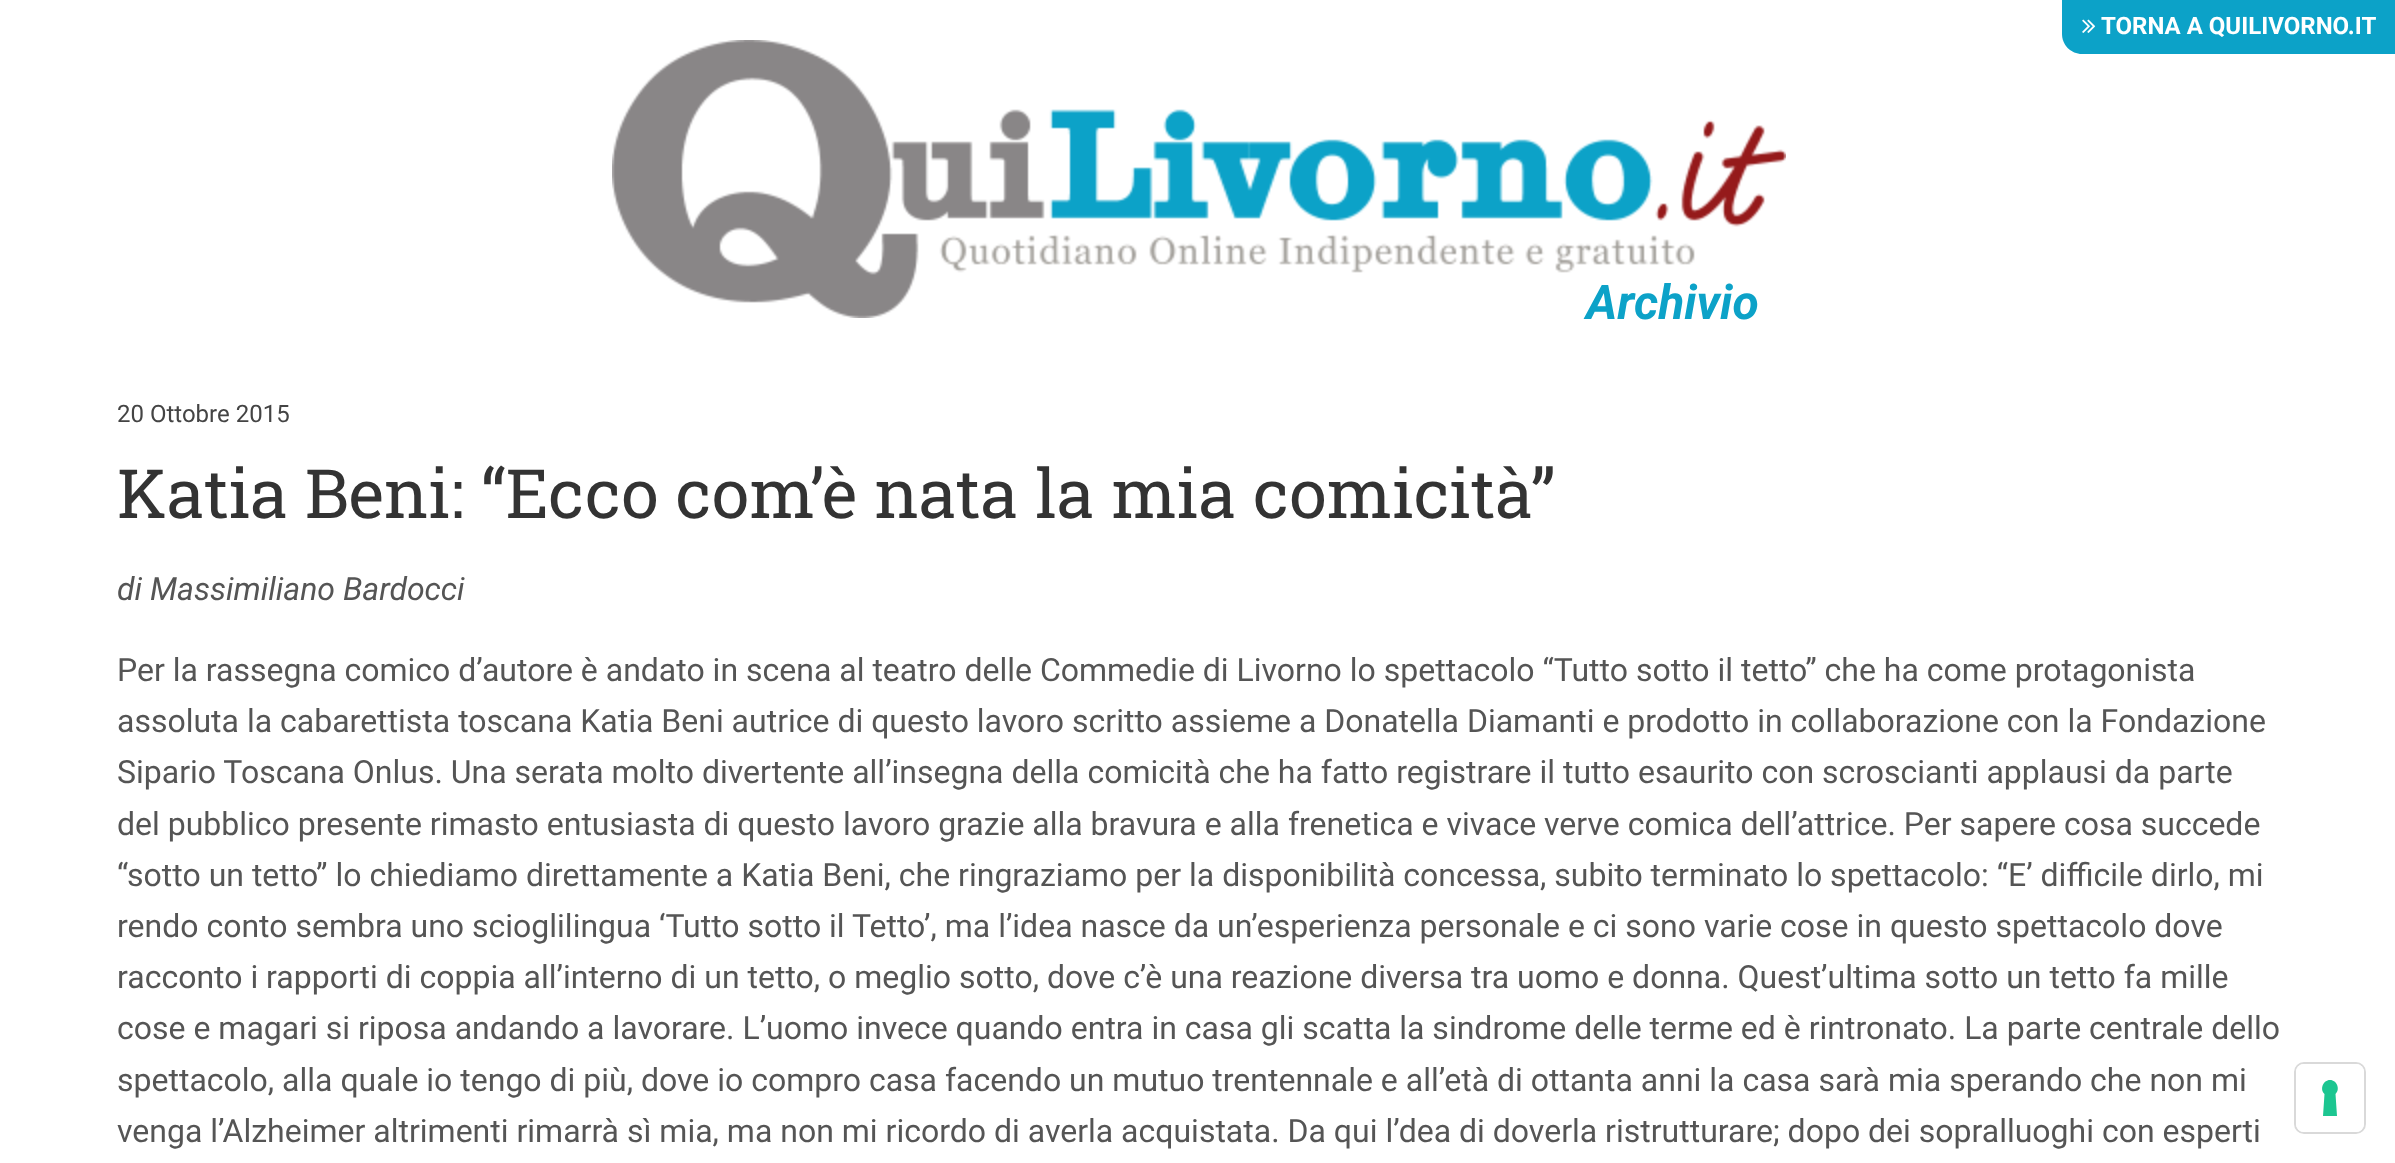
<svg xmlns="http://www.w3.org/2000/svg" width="2395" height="1163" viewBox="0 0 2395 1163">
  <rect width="100%" height="100%" fill="#ffffff"/>
  <path d="M2062 0H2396V54H2082C2071 54 2062 45 2062 34Z" fill="#0ca2c8"/>
  <image x="2082" y="19" width="14" height="14" href="img1.png"/>
  <text x="2101" y="34" font-family="Roboto" font-size="24" font-weight="bold" fill="#ffffff">TORNA A QUILIVORNO.IT</text>
  <image x="612" y="40" width="1174" height="278" href="img2.png"/>
  <text x="1586" y="319" font-family="Roboto" font-size="48" font-weight="bold" font-style="italic" fill="#0ca2c8">Archivio</text>
  <text x="117" y="422" font-family="Roboto" font-size="24" fill="#444444">20 Ottobre 2015</text>
  <text x="117" y="518" font-family="Roboto Slab" font-size="68" fill="#333333">Katia Beni: “Ecco com’è nata la mia comicità”</text>
  <text x="117" y="600" font-family="Roboto" font-size="32" font-style="italic" fill="#555555">di Massimiliano Bardocci</text>
  <text x="117" y="681" font-family="Roboto" font-size="32" fill="#555555">Per la rassegna comico d’autore è andato in scena al teatro delle Commedie di Livorno lo spettacolo “Tutto sotto il tetto” che ha come protagonista</text>
  <text x="117" y="732" font-family="Roboto" font-size="32" fill="#555555">assoluta la cabarettista toscana Katia Beni autrice di questo lavoro scritto assieme a Donatella Diamanti e prodotto in collaborazione con la Fondazione</text>
  <text x="117" y="783" font-family="Roboto" font-size="32" fill="#555555">Sipario Toscana Onlus. Una serata molto divertente all’insegna della comicità che ha fatto registrare il tutto esaurito con scroscianti applausi da parte</text>
  <text x="117" y="835" font-family="Roboto" font-size="32" fill="#555555">del pubblico presente rimasto entusiasta di questo lavoro grazie alla bravura e alla frenetica e vivace verve comica dell’attrice. Per sapere cosa succede</text>
  <text x="117" y="886" font-family="Roboto" font-size="32" fill="#555555">“sotto un tetto” lo chiediamo direttamente a Katia Beni, che ringraziamo per la disponibilità concessa, subito terminato lo spettacolo: “E’ difficile dirlo, mi</text>
  <text x="117" y="937" font-family="Roboto" font-size="32" fill="#555555">rendo conto sembra uno scioglilingua ‘Tutto sotto il Tetto’, ma l’idea nasce da un’esperienza personale e ci sono varie cose in questo spettacolo dove</text>
  <text x="117" y="988" font-family="Roboto" font-size="32" fill="#555555">racconto i rapporti di coppia all’interno di un tetto, o meglio sotto, dove c’è una reazione diversa tra uomo e donna. Quest’ultima sotto un tetto fa mille</text>
  <text x="117" y="1039" font-family="Roboto" font-size="32" fill="#555555">cose e magari si riposa andando a lavorare. L’uomo invece quando entra in casa gli scatta la sindrome delle terme ed è rintronato. La parte centrale dello</text>
  <text x="117" y="1091" font-family="Roboto" font-size="32" fill="#555555">spettacolo, alla quale io tengo di più, dove io compro casa facendo un mutuo trentennale e all’età di ottanta anni la casa sarà mia sperando che non mi</text>
  <text x="117" y="1142" font-family="Roboto" font-size="32" fill="#555555">venga l’Alzheimer altrimenti rimarrà sì mia, ma non mi ricordo di averla acquistata. Da qui l’dea di doverla ristrutturare; dopo dei sopralluoghi con esperti</text>
  <rect x="2295" y="1063" width="70" height="70" rx="9" fill="none" stroke="#d9d9d9" stroke-width="2"/>
  <rect x="2296" y="1064" width="68" height="68" rx="8" fill="#ffffff"/>
  <path d="M2330 1080C2337 1080 2340.5 1089.5 2335.5 1094L2337 1116H2323L2324.5 1094C2319.5 1089.5 2323 1080 2330 1080Z" fill="#1cc691" fill-rule="evenodd"/>
</svg>
